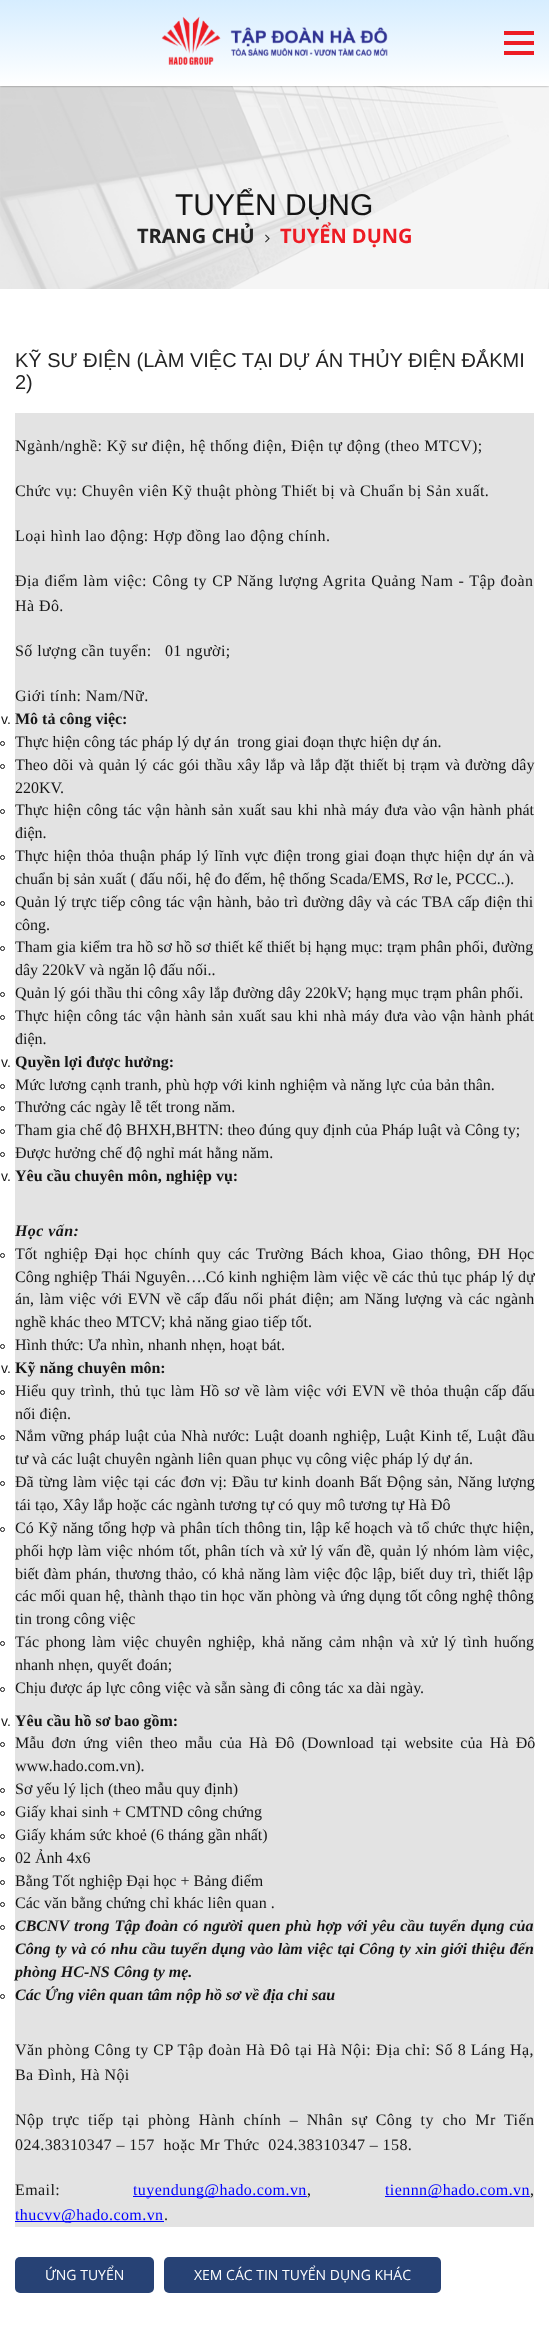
<svg xmlns="http://www.w3.org/2000/svg" width="549" height="2328" viewBox="0 0 549 2328">
  <defs>
    <filter id="blur1" x="-50%" y="-200%" width="200%" height="500%"><feGaussianBlur stdDeviation="1.5"/></filter>
    <linearGradient id="g1" gradientUnits="userSpaceOnUse" x1="275" y1="0" x2="275" y2="86"><stop offset="0" stop-color="#d6edff"/><stop offset="1" stop-color="#ffffff"/></linearGradient>
  </defs>
  <rect width="100%" height="100%" fill="#ffffff"/>
  <image x="0" y="86" width="549" height="203" href="img2.png"/>
  <rect x="0" y="-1" width="549" height="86" fill="#000000" filter="url(#blur1)"/>
  <rect x="0" y="0" width="549" height="86" fill="url(#g1)"/>
  <image x="161" y="16" width="227" height="49" href="img1.png"/>
  <rect x="504" y="51" width="30" height="4" fill="#ed1c24"/>
  <rect x="504" y="31" width="30" height="4" fill="#ed1c24"/>
  <rect x="504" y="41" width="30" height="4" fill="#ed1c24"/>
  <text x="175" y="215" font-family="Liberation Sans" font-size="30" fill="#151515">TUYỂN DỤNG</text>
  <text x="137" y="243" font-family="Open Sans" font-size="20" font-weight="bold" fill="#242424">TRANG CHỦ</text>
  <image x="265" y="234" width="5" height="9" href="img3.png"/>
  <text x="280" y="243" font-family="Open Sans" font-size="20" font-weight="bold" fill="#ed1c24">TUYỂN DỤNG</text>
  <text x="15" y="367" font-family="Liberation Sans" font-size="20" fill="#242424">KỸ SƯ ĐIỆN (LÀM VIỆC TẠI DỰ ÁN THỦY ĐIỆN ĐẮKMI</text>
  <text x="15" y="389" font-family="Liberation Sans" font-size="20" fill="#242424">2)</text>
  <rect x="15" y="413" width="519" height="1814" fill="#e3e3e3"/>
  <text x="15" y="451" font-family="Liberation Serif" font-size="16" letter-spacing="0.42" fill="#151515">Ngành/nghề: Kỹ sư điện, hệ thống điện, Điện tự động (theo MTCV);</text>
  <text x="15" y="496" font-family="Liberation Serif" font-size="16" letter-spacing="0.42" fill="#151515">Chức vụ: Chuyên viên Kỹ thuật phòng Thiết bị và Chuẩn bị Sản xuất.</text>
  <text x="15" y="541" font-family="Liberation Serif" font-size="16" letter-spacing="0.42" fill="#151515">Loại hình lao động: Hợp đồng lao động chính.</text>
  <text x="15" y="586" word-spacing="0.75" font-family="Liberation Serif" font-size="16" letter-spacing="0.42" fill="#151515">Địa điểm làm việc: Công ty CP Năng lượng Agrita Quảng Nam - Tập đoàn</text>
  <text x="15" y="611" font-family="Liberation Serif" font-size="16" letter-spacing="0.42" fill="#151515">Hà Đô.</text>
  <text x="15" y="656" font-family="Liberation Serif" font-size="16" letter-spacing="0.42" fill="#151515" xml:space="preserve">Số lượng cần tuyển:   01 người;</text>
  <text x="15" y="701" font-family="Liberation Serif" font-size="16" letter-spacing="0.42" fill="#151515">Giới tính: Nam/Nữ.</text>
  <text x="1" y="724" font-family="Liberation Sans" font-size="14" fill="#151515">v.</text>
  <text x="15" y="724" font-family="Liberation Serif" font-size="16" font-weight="bold" fill="#151515">Mô tả công việc:</text>
  <circle cx="2.5" cy="743.5" r="2" fill="none" stroke="#151515"/>
  <text x="15" y="747" font-family="Liberation Serif" font-size="16" fill="#151515" xml:space="preserve">Thực hiện công tác pháp lý dự án  trong giai đoạn thực hiện dự án.</text>
  <circle cx="2.5" cy="766.5" r="2" fill="none" stroke="#151515"/>
  <text x="15" y="770" word-spacing="1.1" font-family="Liberation Serif" font-size="16" fill="#151515">Theo dõi và quản lý các gói thầu xây lắp và lắp đặt thiết bị trạm và đường dây</text>
  <text x="15" y="793" font-family="Liberation Serif" font-size="16" fill="#151515">220KV.</text>
  <circle cx="2.5" cy="811.5" r="2" fill="none" stroke="#151515"/>
  <text x="15" y="815" word-spacing="1.25" font-family="Liberation Serif" font-size="16" fill="#151515">Thực hiện công tác vận hành sản xuất sau khi nhà máy đưa vào vận hành phát</text>
  <text x="15" y="838" font-family="Liberation Serif" font-size="16" fill="#151515">điện.</text>
  <circle cx="2.5" cy="857.5" r="2" fill="none" stroke="#151515"/>
  <text x="15" y="861" word-spacing="1.25" font-family="Liberation Serif" font-size="16" fill="#151515">Thực hiện thỏa thuận pháp lý lĩnh vực điện trong giai đoạn thực hiện dự án và</text>
  <text x="15" y="884" font-family="Liberation Serif" font-size="16" fill="#151515">chuẩn bị sản xuất ( đấu nối, hệ đo đếm, hệ thống Scada/EMS, Rơ le, PCCC..).</text>
  <circle cx="2.5" cy="903.5" r="2" fill="none" stroke="#151515"/>
  <text x="15" y="907" word-spacing="0.6" font-family="Liberation Serif" font-size="16" fill="#151515">Quản lý trực tiếp công tác vận hành, bảo trì đường dây và các TBA cấp điện thi</text>
  <text x="15" y="930" font-family="Liberation Serif" font-size="16" fill="#151515">công.</text>
  <circle cx="2.5" cy="948.5" r="2" fill="none" stroke="#151515"/>
  <text x="15" y="952" word-spacing="0.1" font-family="Liberation Serif" font-size="16" fill="#151515">Tham gia kiểm tra hồ sơ hồ sơ thiết kế thiết bị hạng mục: trạm phân phối, đường</text>
  <text x="15" y="975" font-family="Liberation Serif" font-size="16" fill="#151515">dây 220kV và ngăn lộ đấu nối..</text>
  <circle cx="2.5" cy="994.5" r="2" fill="none" stroke="#151515"/>
  <text x="15" y="998" font-family="Liberation Serif" font-size="16" fill="#151515">Quản lý gói thầu thi công xây lắp đường dây 220kV; hạng mục trạm phân phối.</text>
  <circle cx="2.5" cy="1017.5" r="2" fill="none" stroke="#151515"/>
  <text x="15" y="1021" word-spacing="1.25" font-family="Liberation Serif" font-size="16" fill="#151515">Thực hiện công tác vận hành sản xuất sau khi nhà máy đưa vào vận hành phát</text>
  <text x="15" y="1044" font-family="Liberation Serif" font-size="16" fill="#151515">điện.</text>
  <text x="1" y="1067" font-family="Liberation Sans" font-size="14" fill="#151515">v.</text>
  <text x="15" y="1067" font-family="Liberation Serif" font-size="16" font-weight="bold" fill="#151515">Quyền lợi được hưởng:</text>
  <circle cx="2.5" cy="1086.5" r="2" fill="none" stroke="#151515"/>
  <text x="15" y="1090" font-family="Liberation Serif" font-size="16" fill="#151515">Mức lương cạnh tranh, phù hợp với kinh nghiệm và năng lực của bản thân.</text>
  <circle cx="2.5" cy="1108.5" r="2" fill="none" stroke="#151515"/>
  <text x="15" y="1112" font-family="Liberation Serif" font-size="16" fill="#151515">Thưởng các ngày lễ tết trong năm.</text>
  <circle cx="2.5" cy="1131.5" r="2" fill="none" stroke="#151515"/>
  <text x="15" y="1135" font-family="Liberation Serif" font-size="16" fill="#151515">Tham gia chế độ BHXH,BHTN: theo đúng quy định của Pháp luật và Công ty;</text>
  <circle cx="2.5" cy="1154.5" r="2" fill="none" stroke="#151515"/>
  <text x="15" y="1158" font-family="Liberation Serif" font-size="16" fill="#151515">Được hưởng chế độ nghỉ mát hằng năm.</text>
  <text x="1" y="1181" font-family="Liberation Sans" font-size="14" fill="#151515">v.</text>
  <text x="15" y="1181" font-family="Liberation Serif" font-size="16" font-weight="bold" fill="#151515">Yêu cầu chuyên môn, nghiệp vụ:</text>
  <text x="15" y="1236" font-family="Liberation Serif" font-size="16" font-weight="bold" font-style="italic" letter-spacing="0.42" fill="#151515">Học vấn:</text>
  <circle cx="2.5" cy="1255.5" r="2" fill="none" stroke="#151515"/>
  <text x="15" y="1259" word-spacing="2.9" font-family="Liberation Serif" font-size="16" fill="#151515">Tốt nghiệp Đại học chính quy các Trường Bách khoa, Giao thông, ĐH Học</text>
  <text x="15" y="1282" word-spacing="0.25" font-family="Liberation Serif" font-size="16" fill="#151515">Công nghiệp Thái Nguyên….Có kinh nghiệm làm việc về các thủ tục pháp lý dự</text>
  <text x="15" y="1304" word-spacing="1.5" font-family="Liberation Serif" font-size="16" fill="#151515">án, làm việc với EVN về cấp đấu nối phát điện; am Năng lượng và các ngành</text>
  <text x="15" y="1327" font-family="Liberation Serif" font-size="16" fill="#151515">nghề khác theo MTCV; khả năng giao tiếp tốt.</text>
  <circle cx="2.5" cy="1346.5" r="2" fill="none" stroke="#151515"/>
  <text x="15" y="1350" font-family="Liberation Serif" font-size="16" fill="#151515">Hình thức: Ưa nhìn, nhanh nhẹn, hoạt bát.</text>
  <text x="1" y="1373" font-family="Liberation Sans" font-size="14" fill="#151515">v.</text>
  <text x="15" y="1373" font-family="Liberation Serif" font-size="16" font-weight="bold" fill="#151515">Kỹ năng chuyên môn:</text>
  <circle cx="2.5" cy="1392.5" r="2" fill="none" stroke="#151515"/>
  <text x="15" y="1396" word-spacing="1.25" font-family="Liberation Serif" font-size="16" fill="#151515">Hiểu quy trình, thủ tục làm Hồ sơ về làm việc với EVN về thỏa thuận cấp đấu</text>
  <text x="15" y="1419" font-family="Liberation Serif" font-size="16" fill="#151515">nối điện.</text>
  <circle cx="2.5" cy="1437.5" r="2" fill="none" stroke="#151515"/>
  <text x="15" y="1441" word-spacing="1" font-family="Liberation Serif" font-size="16" fill="#151515">Nắm vững pháp luật của Nhà nước: Luật doanh nghiệp, Luật Kinh tế, Luật đầu</text>
  <text x="15" y="1464" font-family="Liberation Serif" font-size="16" fill="#151515">tư và các luật chuyên ngành liên quan phục vụ công việc pháp lý dự án.</text>
  <circle cx="2.5" cy="1483.5" r="2" fill="none" stroke="#151515"/>
  <text x="15" y="1487" word-spacing="1" font-family="Liberation Serif" font-size="16" fill="#151515">Đã từng làm việc tại các đơn vị: Đầu tư kinh doanh Bất Động sản, Năng lượng</text>
  <text x="15" y="1510" font-family="Liberation Serif" font-size="16" fill="#151515">tái tạo, Xây lắp hoặc các ngành tương tự có quy mô tương tự Hà Đô</text>
  <circle cx="2.5" cy="1529.5" r="2" fill="none" stroke="#151515"/>
  <text x="15" y="1533" word-spacing="0.6" font-family="Liberation Serif" font-size="16" fill="#151515">Có Kỹ năng tổng hợp và phân tích thông tin, lập kế hoạch và tổ chức thực hiện,</text>
  <text x="15" y="1556" word-spacing="0.8" font-family="Liberation Serif" font-size="16" fill="#151515">phối hợp làm việc nhóm tốt, phân tích và xử lý vấn đề, quản lý nhóm làm việc,</text>
  <text x="15" y="1579" word-spacing="0.6" font-family="Liberation Serif" font-size="16" fill="#151515">biết đàm phán, thương thảo, có khả năng làm việc độc lập, biết duy trì, thiết lập</text>
  <text x="15" y="1601" word-spacing="0.3" font-family="Liberation Serif" font-size="16" fill="#151515">các mối quan hệ, thành thạo tin học văn phòng và ứng dụng tốt công nghệ thông</text>
  <text x="15" y="1624" font-family="Liberation Serif" font-size="16" fill="#151515">tin trong công việc</text>
  <circle cx="2.5" cy="1643.5" r="2" fill="none" stroke="#151515"/>
  <text x="15" y="1647" word-spacing="2.4" font-family="Liberation Serif" font-size="16" fill="#151515">Tác phong làm việc chuyên nghiệp, khả năng cảm nhận và xử lý tình huống</text>
  <text x="15" y="1670" font-family="Liberation Serif" font-size="16" fill="#151515">nhanh nhẹn, quyết đoán;</text>
  <circle cx="2.5" cy="1689.5" r="2" fill="none" stroke="#151515"/>
  <text x="15" y="1693" font-family="Liberation Serif" font-size="16" fill="#151515">Chịu được áp lực công việc và sẵn sàng đi công tác xa dài ngày.</text>
  <text x="1" y="1726" font-family="Liberation Sans" font-size="14" fill="#151515">v.</text>
  <text x="15" y="1726" font-family="Liberation Serif" font-size="16" font-weight="bold" fill="#151515">Yêu cầu hồ sơ bao gồm:</text>
  <circle cx="2.5" cy="1744.5" r="2" fill="none" stroke="#151515"/>
  <text x="15" y="1748" word-spacing="3.25" font-family="Liberation Serif" font-size="16" fill="#151515">Mẫu đơn ứng viên theo mẫu của Hà Đô (Download tại website của Hà Đô</text>
  <text x="15" y="1771" font-family="Liberation Serif" font-size="16" fill="#151515">www.hado.com.vn).</text>
  <circle cx="2.5" cy="1790.5" r="2" fill="none" stroke="#151515"/>
  <text x="15" y="1794" font-family="Liberation Serif" font-size="16" fill="#151515">Sơ yếu lý lịch (theo mẫu quy định)</text>
  <circle cx="2.5" cy="1813.5" r="2" fill="none" stroke="#151515"/>
  <text x="15" y="1817" font-family="Liberation Serif" font-size="16" fill="#151515">Giấy khai sinh + CMTND công chứng</text>
  <circle cx="2.5" cy="1836.5" r="2" fill="none" stroke="#151515"/>
  <text x="15" y="1840" font-family="Liberation Serif" font-size="16" fill="#151515">Giấy khám sức khoẻ (6 tháng gần nhất)</text>
  <circle cx="2.5" cy="1859.5" r="2" fill="none" stroke="#151515"/>
  <text x="15" y="1863" font-family="Liberation Serif" font-size="16" fill="#151515">02 Ảnh 4x6</text>
  <circle cx="2.5" cy="1882.5" r="2" fill="none" stroke="#151515"/>
  <text x="15" y="1886" font-family="Liberation Serif" font-size="16" fill="#151515">Bằng Tốt nghiệp Đại học + Bảng điểm</text>
  <circle cx="2.5" cy="1904.5" r="2" fill="none" stroke="#151515"/>
  <text x="15" y="1908" font-family="Liberation Serif" font-size="16" fill="#151515">Các văn bằng chứng chỉ khác liên quan .</text>
  <circle cx="2.5" cy="1927.5" r="2" fill="none" stroke="#151515"/>
  <text x="15" y="1931" word-spacing="1" font-family="Liberation Serif" font-size="16" font-weight="bold" font-style="italic" fill="#151515">CBCNV trong Tập đoàn có người quen phù hợp với yêu cầu tuyển dụng của</text>
  <text x="15" y="1954" word-spacing="0.6" font-family="Liberation Serif" font-size="16" font-weight="bold" font-style="italic" fill="#151515">Công ty và có nhu cầu tuyển dụng vào làm việc tại Công ty xin giới thiệu đến</text>
  <text x="15" y="1977" font-family="Liberation Serif" font-size="16" font-weight="bold" font-style="italic" fill="#151515">phòng HC-NS Công ty mẹ.</text>
  <circle cx="2.5" cy="1996.5" r="2" fill="none" stroke="#151515"/>
  <text x="15" y="2000" font-family="Liberation Serif" font-size="16" font-weight="bold" font-style="italic" fill="#151515">Các Ứng viên quan tâm nộp hồ sơ về địa chỉ sau</text>
  <text x="15" y="2055" word-spacing="0.25" font-family="Liberation Serif" font-size="16" letter-spacing="0.42" fill="#151515">Văn phòng Công ty CP Tập đoàn Hà Đô tại Hà Nội: Địa chỉ: Số 8 Láng Hạ,</text>
  <text x="15" y="2080" font-family="Liberation Serif" font-size="16" letter-spacing="0.42" fill="#151515">Ba Đình, Hà Nội</text>
  <text x="15" y="2125" word-spacing="4.1" font-family="Liberation Serif" font-size="16" letter-spacing="0.42" fill="#151515">Nộp trực tiếp tại phòng Hành chính – Nhân sự Công ty cho Mr Tiến</text>
  <text x="15" y="2150" font-family="Liberation Serif" font-size="16" letter-spacing="0.42" fill="#151515" xml:space="preserve">024.38310347 – 157  hoặc Mr Thức  024.38310347 – 158.</text>
  <text x="15" y="2195" font-family="Liberation Serif" font-size="16" letter-spacing="0.42" fill="#151515">Email:</text>
  <rect x="133" y="2196" width="174" height="1" fill="#0000ff"/>
  <text x="133" y="2195" font-family="Liberation Serif" font-size="16" letter-spacing="0.42" fill="#0000ff">tuyendung@hado.com.vn</text>
  <text x="307" y="2195" font-family="Liberation Serif" font-size="16" letter-spacing="0.42" fill="#151515">,</text>
  <rect x="385" y="2196" width="145" height="1" fill="#0000ff"/>
  <text x="385" y="2195" font-family="Liberation Serif" font-size="16" letter-spacing="0.42" fill="#0000ff">tiennn@hado.com.vn</text>
  <text x="530" y="2195" font-family="Liberation Serif" font-size="16" letter-spacing="0.42" fill="#151515">,</text>
  <rect x="15" y="2221" width="149" height="1" fill="#0000ff"/>
  <text x="15" y="2220" font-family="Liberation Serif" font-size="16" letter-spacing="0.42" fill="#0000ff">thucvv@hado.com.vn</text>
  <text x="164" y="2220" font-family="Liberation Serif" font-size="16" letter-spacing="0.42" fill="#151515">.</text>
  <rect x="15" y="2257" width="139" height="36" rx="5" fill="#274275"/>
  <text x="45" y="2280" font-family="Open Sans" font-size="14" fill="#ffffff">ỨNG TUYỂN</text>
  <rect x="164" y="2257" width="277" height="36" rx="5" fill="#274275"/>
  <text x="194" y="2280" font-family="Open Sans" font-size="14" fill="#ffffff">XEM CÁC TIN TUYỂN DỤNG KHÁC</text>
</svg>
